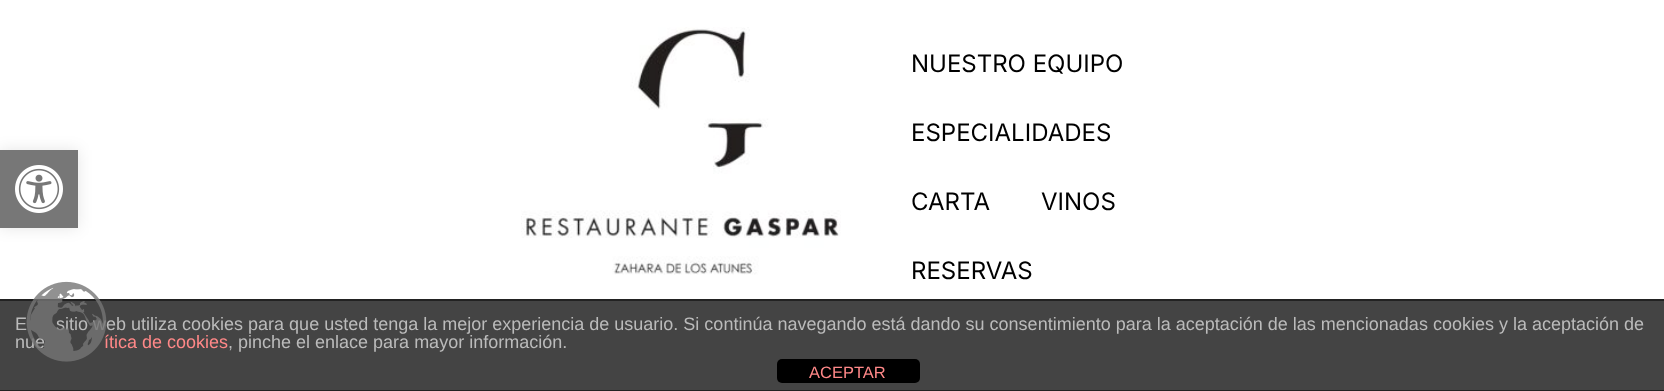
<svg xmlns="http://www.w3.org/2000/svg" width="1664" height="391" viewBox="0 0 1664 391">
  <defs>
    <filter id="blur1" x="-50%" y="-200%" width="200%" height="500%"><feGaussianBlur stdDeviation="7.5"/></filter>
  </defs>
  <rect width="100%" height="100%" fill="#ffffff"/>
  <rect x="0" y="150" width="78" height="78" fill="#000000" fill-opacity="0.1" filter="url(#blur1)"/>
  <rect x="0" y="150" width="78" height="78" fill="#777777"/>
  <image x="15" y="165" width="48" height="48" href="img1.png"/>
  <image x="521" y="27" width="320" height="248" href="img2.png"/>
  <text x="911" y="72" font-family="Inter" font-size="24" fill="#000000">NUESTRO EQUIPO</text>
  <text x="911" y="141" font-family="Inter" font-size="24" fill="#000000">ESPECIALIDADES</text>
  <text x="911" y="210" font-family="Inter" font-size="24" fill="#000000">CARTA</text>
  <text x="1041" y="210" font-family="Inter" font-size="24" fill="#000000">VINOS</text>
  <text x="911" y="279" font-family="Inter" font-size="24" fill="#000000">RESERVAS</text>
  <rect x="0" y="301" width="1664" height="89" fill="#444444"/>
  <rect x="0" y="299" width="1664" height="2" fill="#222222"/>
  <text x="15" y="330" font-family="Liberation Sans" font-size="18" fill="#bbbbbb">E</text>
  <text x="56" y="330" font-family="Liberation Sans" font-size="18" fill="#bbbbbb">sitio web utiliza cookies para que usted tenga la mejor experiencia de usuario. Si continúa navegando está dando su consentimiento para la aceptación de las mencionadas cookies y la aceptación de</text>
  <text x="15" y="348" font-family="Liberation Sans" font-size="18" fill="#bbbbbb">nue</text>
  <text x="104" y="348" font-family="Liberation Sans" font-size="18" fill="#ff8888">ítica de cookies</text>
  <image x="26" y="281" width="81" height="81" href="img3.png"/>
  <rect x="0" y="390" width="1664" height="1" fill="#222222"/>
  <text x="228" y="348" font-family="Liberation Sans" font-size="18" fill="#bbbbbb">, pinche el enlace para mayor información.</text>
  <rect x="777" y="359" width="143" height="24" rx="5" fill="#000000"/>
  <text x="809" y="378" font-family="Liberation Sans" font-size="16.5" fill="#ff8888">ACEPTAR</text>
</svg>
